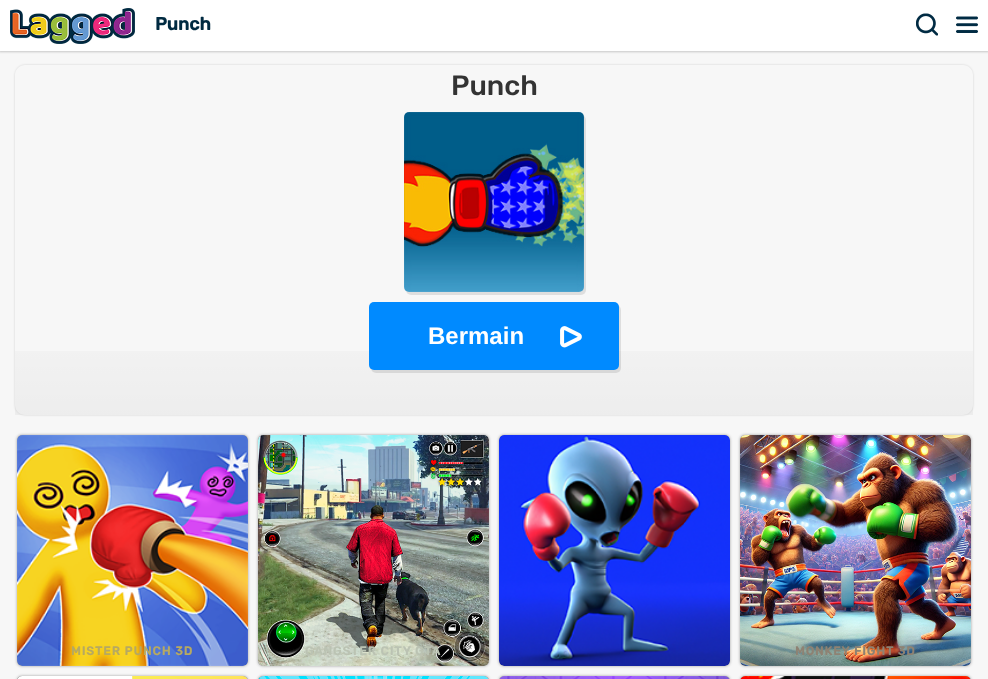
<svg xmlns="http://www.w3.org/2000/svg" width="988" height="679" viewBox="0 0 988 679">
  <defs>
    <filter id="blur1" x="-50%" y="-200%" width="200%" height="500%"><feGaussianBlur stdDeviation="1"/></filter>
    <clipPath id="clip1"><path d="M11 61H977V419H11ZM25 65H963C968.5 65 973 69.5 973 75V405C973 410.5 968.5 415 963 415H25C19.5 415 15 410.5 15 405V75C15 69.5 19.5 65 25 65Z" clip-rule="evenodd"/></clipPath>
    <linearGradient id="g1" gradientUnits="userSpaceOnUse" x1="494" y1="65" x2="494" y2="415"><stop offset="0.6" stop-color="#000000" stop-opacity="0"/><stop offset="1" stop-color="#000000" stop-opacity="0.04"/></linearGradient>
    <filter id="blur2" x="-50%" y="-200%" width="200%" height="500%"><feGaussianBlur stdDeviation="0.5"/></filter>
    <filter id="blur3" x="-50%" y="-200%" width="200%" height="500%"><feGaussianBlur stdDeviation="1.5"/></filter>
  </defs>
  <rect width="100%" height="100%" fill="#f7f7f7"/>
  <rect x="-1" y="-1" width="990" height="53" fill="#000000" fill-opacity="0.2" filter="url(#blur1)"/>
  <rect x="0" y="0" width="988" height="51" fill="#ffffff"/>
  <image x="10" y="8" width="125" height="36" href="img1.png"/>
  <text x="155" y="30" font-family="Rubik" font-size="18" font-weight="bold" fill="#002a41">Punch</text>
  <image x="916" y="13" width="22" height="23" href="img2.png"/>
  <image x="956" y="16" width="22" height="17" href="img3.png"/>
  <g clip-path="url(#clip1)">
    <rect x="15" y="65" width="958" height="350" rx="10" fill="#000000" fill-opacity="0.15" filter="url(#blur1)"/>
  </g>
  <rect x="15" y="351" width="958" height="64" fill="url(#g1)"/>
  <text x="451" y="95" font-family="Rubik" font-size="28" font-weight="500" fill="#333333">Punch</text>
  <rect x="406" y="115" width="180" height="180" rx="5" fill="#000000" fill-opacity="0.1" filter="url(#blur2)"/>
  <image x="404" y="112" width="180" height="180" href="img4.png"/>
  <rect x="371" y="305" width="250" height="68" rx="5" fill="#000000" fill-opacity="0.1" filter="url(#blur2)"/>
  <rect x="369" y="302" width="250" height="68" rx="5" fill="#008aff"/>
  <text x="428" y="344" font-family="Liberation Sans" font-size="24" font-weight="bold" fill="#ffffff">Bermain</text>
  <image x="560" y="326" width="22" height="22" href="img5.png"/>
  <rect x="17" y="435" width="231" height="231" rx="5" fill="#000000" fill-opacity="0.35" filter="url(#blur3)"/>
  <rect x="17" y="435" width="231" height="231" rx="5" fill="#000000" fill-opacity="0.18"/>
  <image x="17" y="435" width="231" height="231" href="img6.png"/>
  <text x="71" y="655" font-family="Rubik" font-size="12" font-weight="bold" letter-spacing="1" fill="#b6a962">MISTER PUNCH 3D</text>
  <rect x="258" y="435" width="231" height="231" rx="5" fill="#000000" fill-opacity="0.35" filter="url(#blur3)"/>
  <rect x="258" y="435" width="231" height="231" rx="5" fill="#000000" fill-opacity="0.18"/>
  <image x="258" y="435" width="231" height="231" href="img7.png"/>
  <text x="305" y="655" font-family="Rubik" font-size="12" font-weight="bold" letter-spacing="1" fill="#bbc3b3">GANGSTER CITY GTA</text>
  <rect x="499" y="435" width="231" height="231" rx="5" fill="#000000" fill-opacity="0.35" filter="url(#blur3)"/>
  <rect x="499" y="435" width="231" height="231" rx="5" fill="#000000" fill-opacity="0.18"/>
  <image x="499" y="435" width="231" height="231" href="img8.png"/>
  <rect x="740" y="435" width="231" height="231" rx="5" fill="#000000" fill-opacity="0.35" filter="url(#blur3)"/>
  <rect x="740" y="435" width="231" height="231" rx="5" fill="#000000" fill-opacity="0.18"/>
  <image x="740" y="435" width="231" height="231" href="img9.png"/>
  <text x="795" y="655" font-family="Rubik" font-size="12" font-weight="bold" letter-spacing="1" fill="#8e8273">MONKEY FIGHT 3D</text>
  <rect x="17" y="676" width="231" height="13" rx="5" fill="#000000" fill-opacity="0.35" filter="url(#blur3)"/>
  <rect x="17" y="676" width="231" height="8" rx="5" fill="#000000" fill-opacity="0.18"/>
  <image x="18" y="676" width="229" height="3" href="img10.png"/>
  <rect x="258" y="676" width="231" height="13" rx="5" fill="#000000" fill-opacity="0.35" filter="url(#blur3)"/>
  <rect x="258" y="676" width="231" height="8" rx="5" fill="#000000" fill-opacity="0.18"/>
  <image x="259" y="676" width="229" height="3" href="img11.png"/>
  <rect x="499" y="676" width="231" height="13" rx="5" fill="#000000" fill-opacity="0.35" filter="url(#blur3)"/>
  <rect x="499" y="676" width="231" height="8" rx="5" fill="#000000" fill-opacity="0.18"/>
  <image x="500" y="676" width="229" height="3" href="img12.png"/>
  <rect x="740" y="676" width="231" height="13" rx="5" fill="#000000" fill-opacity="0.35" filter="url(#blur3)"/>
  <rect x="740" y="676" width="231" height="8" rx="5" fill="#000000" fill-opacity="0.18"/>
  <image x="741" y="676" width="229" height="3" href="img13.png"/>
</svg>
